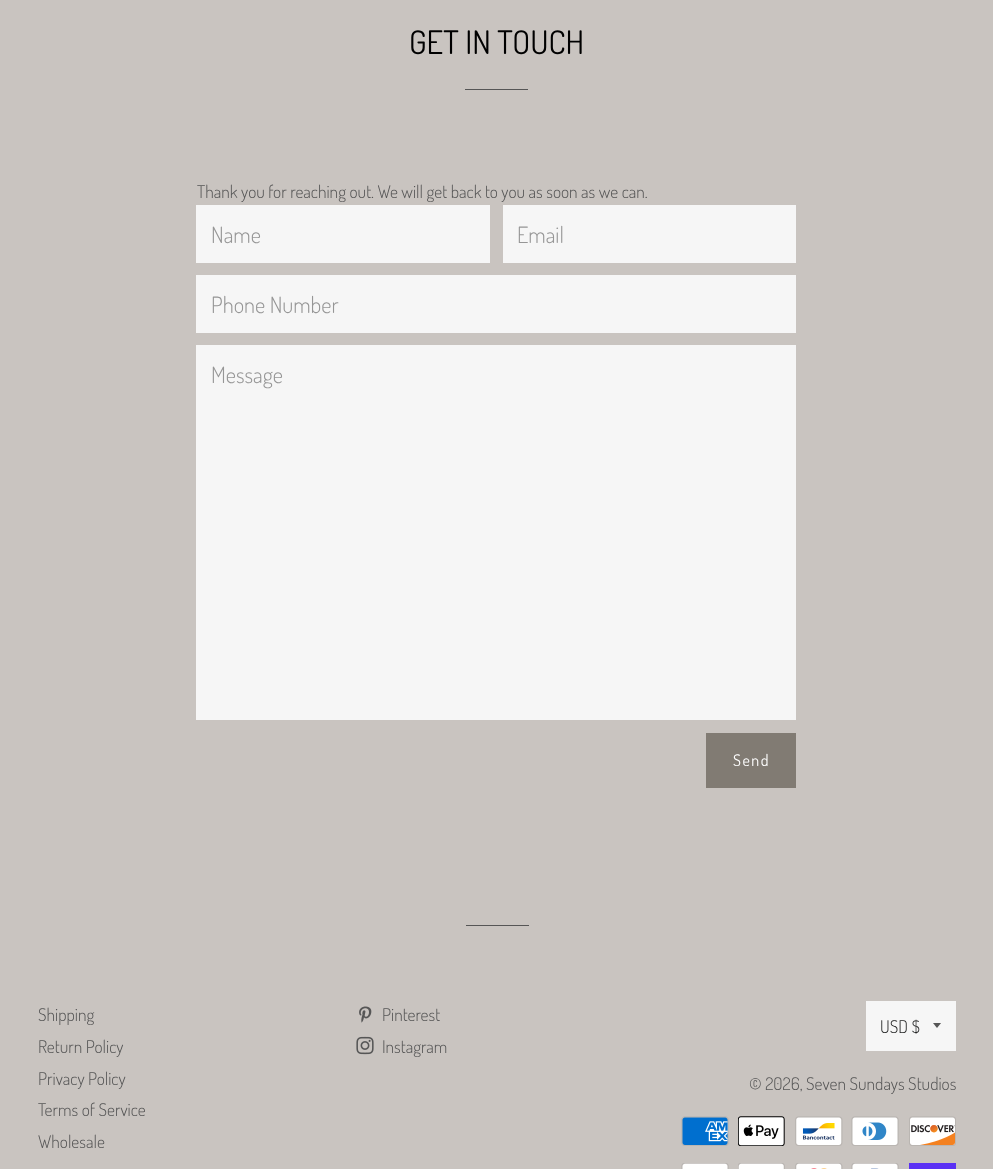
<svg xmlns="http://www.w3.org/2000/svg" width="993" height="1169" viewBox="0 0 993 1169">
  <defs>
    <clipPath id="clip1"><rect x="933" y="1023" width="10" height="6"/></clipPath>
  </defs>
  <rect width="100%" height="100%" fill="#c9c4c0"/>
  <text x="409" y="54" font-family="Dosis" font-size="32.5" fill="#000000">GET IN TOUCH</text>
  <rect x="465" y="89" width="63" height="1" fill="#565656"/>
  <text x="197" y="198" font-family="Dosis" font-size="17.5" font-weight="300" fill="#565656">Thank you for reaching out. We will get back to you as soon as we can.</text>
  <rect x="196" y="205" width="294" height="58" fill="#f6f6f6"/>
  <text x="211" y="243" font-family="Dosis" font-size="22.5" font-weight="300" fill="#969696">Name</text>
  <rect x="503" y="205" width="293" height="58" fill="#f6f6f6"/>
  <text x="517" y="243" font-family="Dosis" font-size="22.5" font-weight="300" fill="#969696">Email</text>
  <rect x="196" y="275" width="600" height="58" fill="#f6f6f6"/>
  <text x="211" y="313" font-family="Dosis" font-size="22.5" font-weight="300" fill="#969696">Phone Number</text>
  <rect x="196" y="345" width="600" height="375" fill="#f6f6f6"/>
  <text x="211" y="383" font-family="Dosis" font-size="22.5" font-weight="300" fill="#969696">Message</text>
  <rect x="706" y="733" width="90" height="55" fill="#817b73"/>
  <text x="733" y="766" font-family="Dosis" font-size="16" letter-spacing="1.5" fill="#ffffff">Send</text>
  <rect x="466" y="925" width="63" height="1" fill="#565656"/>
  <text x="38" y="1021" font-family="Dosis" font-size="17.5" font-weight="300" fill="#565656">Shipping</text>
  <text x="38" y="1053" font-family="Dosis" font-size="17.5" font-weight="300" fill="#565656">Return Policy</text>
  <text x="38" y="1085" font-family="Dosis" font-size="17.5" font-weight="300" fill="#565656">Privacy Policy</text>
  <text x="38" y="1116" font-family="Dosis" font-size="17.5" font-weight="300" fill="#565656">Terms of Service</text>
  <text x="38" y="1148" font-family="Dosis" font-size="17.5" font-weight="300" fill="#565656">Wholesale</text>
  <image x="359" y="1006" width="13" height="17" href="img1.png"/>
  <text x="382" y="1021" font-family="Dosis" font-size="17.5" font-weight="300" fill="#565656">Pinterest</text>
  <image x="356" y="1036" width="18" height="19" href="img2.png"/>
  <text x="382" y="1053" font-family="Dosis" font-size="17.5" font-weight="300" fill="#565656">Instagram</text>
  <rect x="866" y="1001" width="90" height="50" fill="#f6f6f6"/>
  <g clip-path="url(#clip1)">
    <path d="M932.5 1022.5L937 1028L941.5 1022.5Z" fill="#565656"/>
  </g>
  <text x="880" y="1033" font-family="Dosis" font-size="17.5" font-weight="300" fill="#1c1d1d">USD $</text>
  <text x="749" y="1090" font-family="Dosis" font-size="17.5" font-weight="300" fill="#565656">© 2026, Seven Sundays Studios</text>
  <image x="681" y="1116" width="48" height="30" href="img3.png"/>
  <image x="738" y="1116" width="47" height="30" href="img4.png"/>
  <image x="795" y="1116" width="48" height="30" href="img5.png"/>
  <image x="851" y="1116" width="48" height="30" href="img6.png"/>
  <image x="909" y="1116" width="47" height="30" href="img7.png"/>
  <image x="681" y="1163" width="48" height="6" href="img8.png"/>
  <image x="738" y="1163" width="47" height="6" href="img9.png"/>
  <image x="795" y="1163" width="48" height="6" href="img10.png"/>
  <image x="851" y="1163" width="48" height="6" href="img11.png"/>
  <rect x="909" y="1163" width="47" height="6" fill="#5a31f4"/>
</svg>
